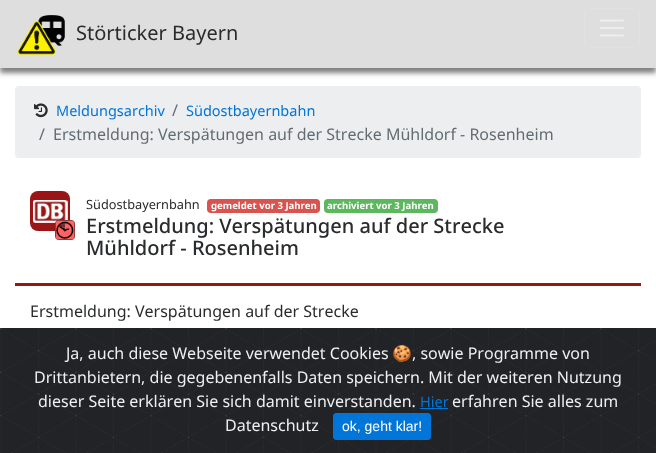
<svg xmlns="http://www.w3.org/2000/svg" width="656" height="453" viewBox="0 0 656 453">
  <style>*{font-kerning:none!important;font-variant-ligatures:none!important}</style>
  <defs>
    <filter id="blur1" x="-50%" y="-200%" width="200%" height="500%"><feGaussianBlur stdDeviation="2.5"/></filter>
  </defs>
  <rect width="100%" height="100%" fill="#ffffff"/>
  <rect x="0" y="5" width="656" height="68" fill="#808080" filter="url(#blur1)"/>
  <rect x="0" y="0" width="656" height="68" fill="#dfdede"/>
  <image x="17" y="15" width="48" height="41" href="img1.png"/>
  <text x="76" y="40" font-family="Noto Sans" font-size="20" fill="#292b2c">Störticker Bayern</text>
  <rect x="584.5" y="8.5" width="55" height="39" rx="3.5" fill="none" stroke="#e2e1e1"/>
  <image x="600" y="19" width="24" height="18" href="img2.png"/>
  <rect x="15" y="86" width="626" height="72" rx="4" fill="#eceeef"/>
  <image x="34" y="103" width="14" height="15" href="img3.png"/>
  <text x="56" y="116" font-family="Noto Sans" font-size="14.5" fill="#0275d8">Meldungsarchiv</text>
  <text x="172" y="116" font-family="Noto Sans" font-size="16" fill="#636c72">/</text>
  <text x="186" y="116" font-family="Noto Sans" font-size="14.5" fill="#0275d8">Südostbayernbahn</text>
  <text x="39" y="140" font-family="Noto Sans" font-size="16" fill="#636c72">/</text>
  <text x="53" y="140" font-family="Noto Sans" font-size="16" fill="#636c72">Erstmeldung: Verspätungen auf der Strecke Mühldorf - Rosenheim</text>
  <rect x="15" y="283" width="626" height="3" fill="#9a1616"/>
  <rect x="30" y="191" width="40" height="40" rx="8" fill="#9a1616"/>
  <image x="33" y="200" width="35" height="23" href="img4.png"/>
  <image x="55" y="220" width="20" height="20" href="img5.png"/>
  <text x="86" y="209" font-family="Noto Sans" font-size="12.75" fill="#292b2c">Südostbayernbahn</text>
  <rect x="207" y="199" width="113" height="14" rx="4" fill="#d9534f"/>
  <text x="211" y="209" font-family="Noto Sans" font-size="9.6" font-weight="bold" fill="#ffffff">gemeldet vor 3 Jahren</text>
  <rect x="324" y="199" width="114" height="14" rx="4" fill="#5cb85c"/>
  <text x="327" y="209" font-family="Noto Sans" font-size="9.6" font-weight="bold" fill="#ffffff">archiviert vor 3 Jahren</text>
  <text x="86" y="233" font-family="Noto Sans" font-size="20" font-weight="500" fill="#292b2c">Erstmeldung: Verspätungen auf der Strecke</text>
  <text x="86" y="255" font-family="Noto Sans" font-size="20" font-weight="500" fill="#292b2c">Mühldorf - Rosenheim</text>
  <text x="30" y="317" font-family="Noto Sans" font-size="16" fill="#292b2c">Erstmeldung: Verspätungen auf der Strecke</text>
  <image x="0" y="328" width="656" height="125" href="img6.png"/>
  <text x="66" y="359" font-family="Noto Sans" font-size="16" fill="#ecf0f1">Ja, auch diese Webseite verwendet Cookies</text>
  <text x="392" y="359" font-family="Noto Color Emoji" font-size="16" fill="#ecf0f1">🍪</text>
  <text x="412" y="359" font-family="Noto Sans" font-size="16" fill="#ecf0f1">, sowie Programme von</text>
  <text x="34" y="383" font-family="Noto Sans" font-size="16" fill="#ecf0f1">Drittanbietern, die gegebenenfalls Daten speichern. Mit der weiteren Nutzung</text>
  <text x="38" y="407" font-family="Noto Sans" font-size="16" fill="#ecf0f1">dieser Seite erklären Sie sich damit einverstanden.</text>
  <text x="420" y="407" font-family="Noto Sans" font-size="14.5" fill="#0275d8">Hier</text>
  <rect x="420" y="408" width="28" height="1" fill="#0275d8"/>
  <text x="452" y="407" font-family="Noto Sans" font-size="16" fill="#ecf0f1">erfahren Sie alles zum</text>
  <text x="225" y="431" font-family="Noto Sans" font-size="16" fill="#ecf0f1">Datenschutz</text>
  <rect x="333.5" y="413.5" width="97" height="26" rx="2.5" fill="#0275d8" stroke="#0275d8"/>
  <text x="342" y="431" font-family="Liberation Sans" font-size="14" fill="#ffffff">ok, geht klar!</text>
</svg>
